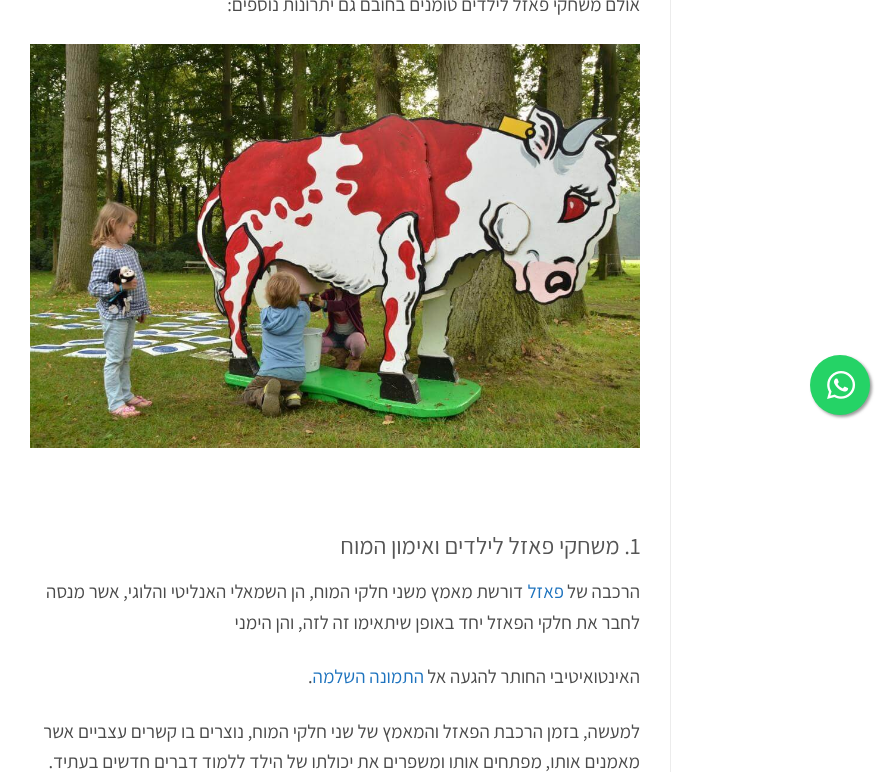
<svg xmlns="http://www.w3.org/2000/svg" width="895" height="772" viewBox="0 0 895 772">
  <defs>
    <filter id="blur1" x="-50%" y="-200%" width="200%" height="500%"><feGaussianBlur stdDeviation="1.5"/></filter>
  </defs>
  <rect width="100%" height="100%" fill="#ffffff"/>
  <rect x="812" y="357" width="60" height="60" rx="30" fill="#999999" filter="url(#blur1)"/>
  <circle cx="840" cy="385" r="30" fill="#25d366"/>
  <image x="827" y="371" width="29" height="28" href="img1.png"/>
  <rect x="670" y="0" width="1" height="772" fill="#ececec"/>
  <text x="640" y="11" font-family="Assistant" font-size="18.9" direction="rtl" fill="#4a4a4a">אולם משחקי פאזל לילדים טומנים בחובם גם יתרונות נוספים:</text>
  <image x="30" y="44" width="610" height="404" href="img2.png"/>
  <text x="630" y="554" font-family="Assistant" font-size="23.6" fill="#555555">1</text>
  <text x="630" y="554" font-family="Assistant" font-size="23.6" direction="rtl" fill="#555555">. משחקי פאזל לילדים ואימון המוח</text>
  <text x="640" y="598" font-family="Assistant" font-size="18.9" direction="rtl" fill="#4a4a4a">הרכבה של</text>
  <text x="564" y="598" font-family="Assistant" font-size="18.9" direction="rtl" fill="#1e73be">פאזל</text>
  <text x="523" y="598" font-family="Assistant" font-size="18.9" direction="rtl" fill="#4a4a4a">דורשת מאמץ משני חלקי המוח, הן השמאלי האנליטי והלוגי, אשר מנסה</text>
  <text x="640" y="629" font-family="Assistant" font-size="18.9" direction="rtl" fill="#4a4a4a">לחבר את חלקי הפאזל יחד באופן שיתאימו זה לזה, והן הימני</text>
  <text x="640" y="683" font-family="Assistant" font-size="18.9" direction="rtl" fill="#4a4a4a">האינטואיטיבי החותר להגעה אל</text>
  <text x="424" y="683" font-family="Assistant" font-size="18.9" direction="rtl" fill="#1e73be">התמונה השלמה</text>
  <text x="308" y="683" font-family="Assistant" font-size="18.9" fill="#4a4a4a">.</text>
  <text x="640" y="738" font-family="Assistant" font-size="18.9" direction="rtl" fill="#4a4a4a">למעשה, בזמן הרכבת הפאזל והמאמץ של שני חלקי המוח, נוצרים בו קשרים עצביים אשר</text>
  <text x="640" y="768" font-family="Assistant" font-size="18.9" direction="rtl" fill="#4a4a4a">מאמנים אותו, מפתחים אותו ומשפרים את יכולתו של הילד ללמוד דברים חדשים בעתיד.</text>
</svg>
